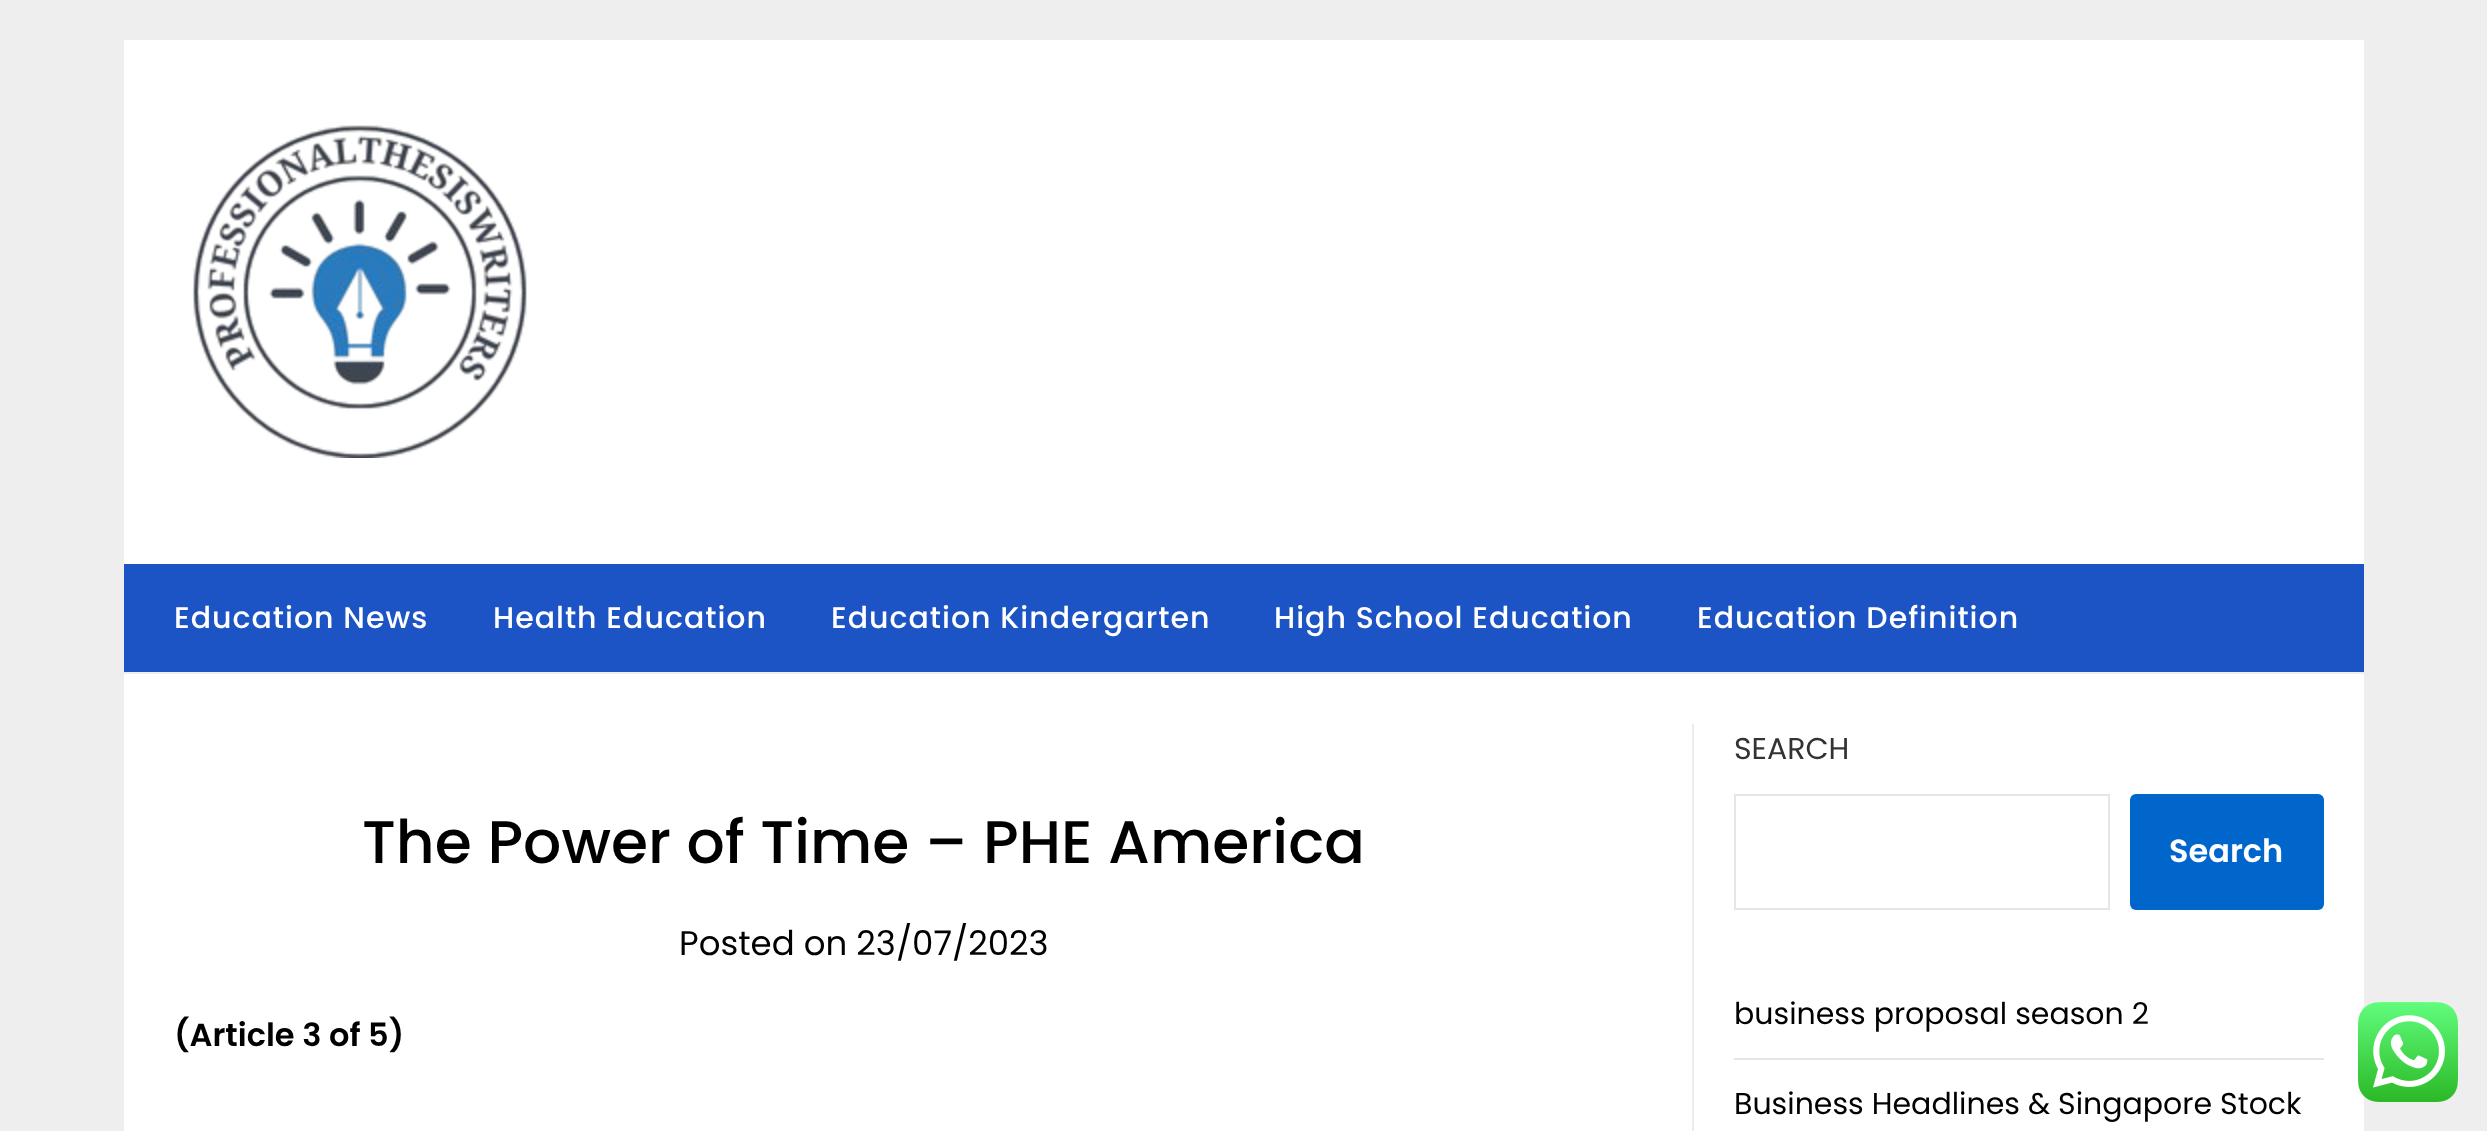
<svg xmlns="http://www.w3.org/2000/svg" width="2487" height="1131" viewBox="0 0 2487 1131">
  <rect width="100%" height="100%" fill="#eeeeee"/>
  <rect x="124" y="40" width="2240" height="524" fill="#ffffff"/>
  <image x="192" y="125" width="335" height="333" href="img1.png"/>
  <rect x="124" y="564" width="2240" height="108" fill="#1c53c5"/>
  <text x="174" y="628" font-family="Poppins" font-size="30" font-weight="500" letter-spacing="1" fill="#ffffff">Education News</text>
  <text x="493" y="628" font-family="Poppins" font-size="30" font-weight="500" letter-spacing="1" fill="#ffffff">Health Education</text>
  <text x="831" y="628" font-family="Poppins" font-size="30" font-weight="500" letter-spacing="1" fill="#ffffff">Education Kindergarten</text>
  <text x="1274" y="628" font-family="Poppins" font-size="30" font-weight="500" letter-spacing="1" fill="#ffffff">High School Education</text>
  <text x="1697" y="628" font-family="Poppins" font-size="30" font-weight="500" letter-spacing="1" fill="#ffffff">Education Definition</text>
  <rect x="124" y="674" width="2240" height="457" fill="#ffffff"/>
  <text x="362" y="863" font-family="Poppins" font-size="60" font-weight="500" fill="#000000">The Power of Time – PHE America</text>
  <text x="679" y="955" font-family="Poppins" font-size="34" fill="#000000">Posted on 23/07/2023</text>
  <text x="174" y="1046" font-family="Poppins" font-size="32" font-weight="600" fill="#000000">(Article 3 of 5)</text>
  <rect x="1692" y="724" width="2" height="407" fill="#ececec"/>
  <text x="1734" y="759" font-family="Poppins" font-size="30" fill="#333333">SEARCH</text>
  <rect x="1735" y="795" width="374" height="114" fill="none" stroke="#e5e6e9" stroke-width="2"/>
  <rect x="2130" y="794" width="194" height="116" rx="6" fill="#0066cc"/>
  <text x="2169" y="862" font-family="Poppins" font-size="32" font-weight="600" fill="#ffffff">Search</text>
  <rect x="1734" y="1058" width="590" height="2" fill="#e6e6e6"/>
  <text x="1734" y="1024" font-family="Poppins" font-size="30" fill="#000000">business proposal season 2</text>
  <text x="1734" y="1114" font-family="Poppins" font-size="30" fill="#000000">Business Headlines &amp; Singapore Stock</text>
  <image x="2358" y="1002" width="100" height="100" href="img2.png"/>
</svg>
